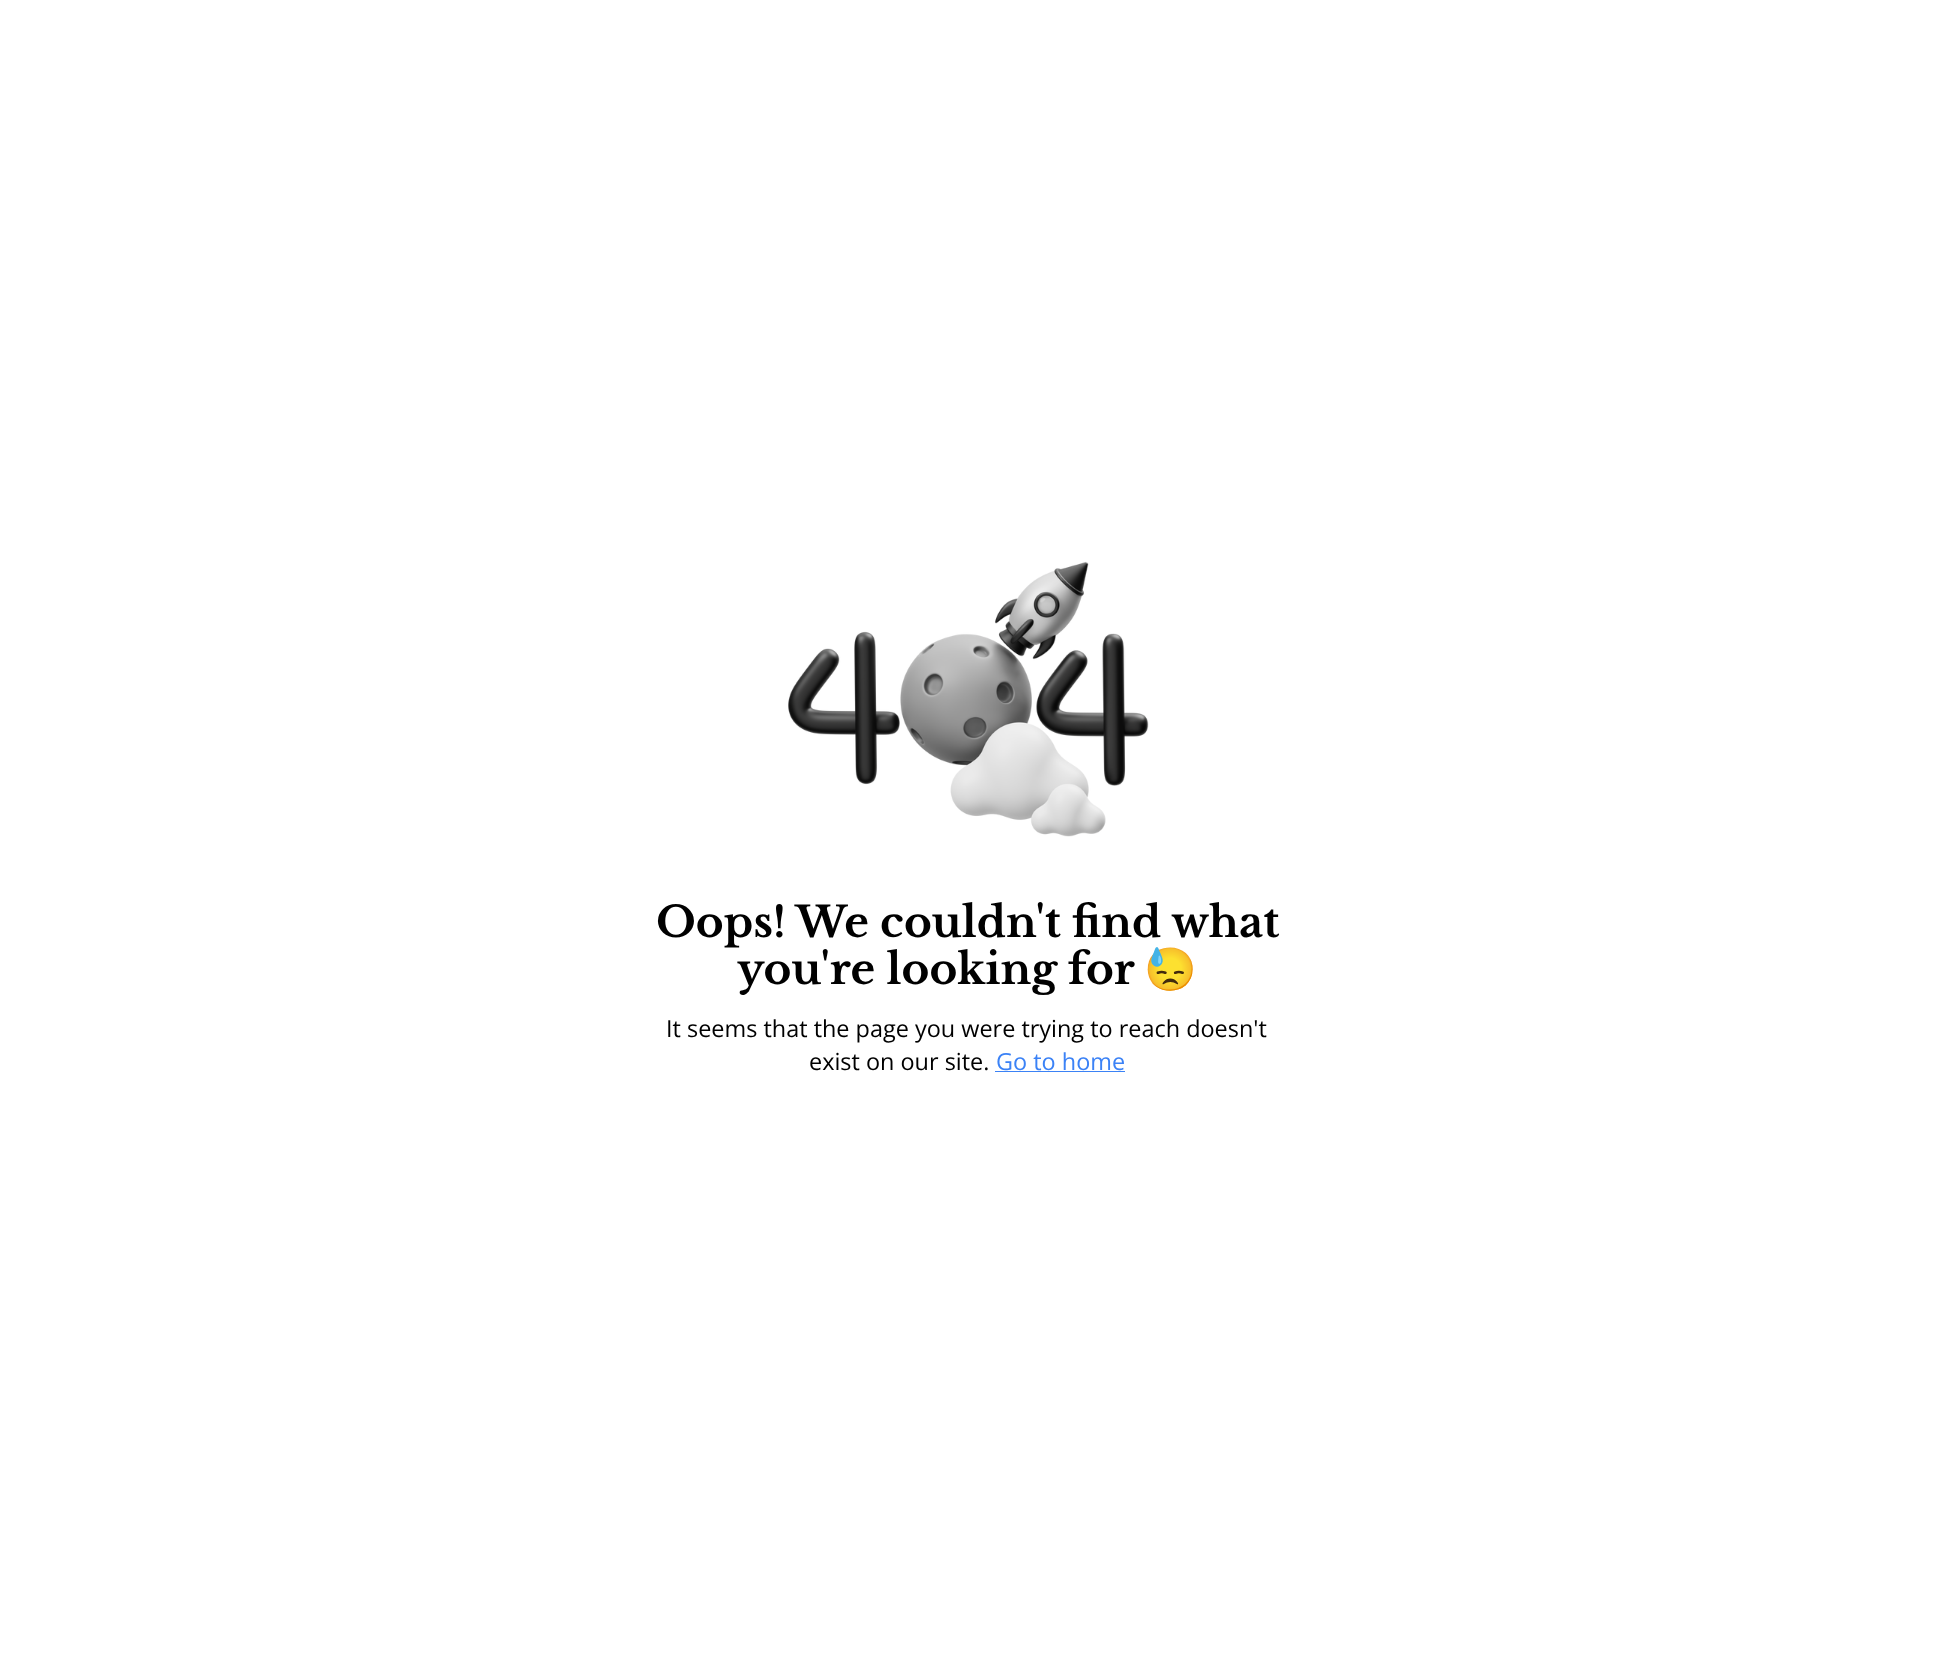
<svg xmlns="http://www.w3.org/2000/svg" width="1933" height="1677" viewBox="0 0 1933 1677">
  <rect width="100%" height="100%" fill="#ffffff"/>
  <image x="788" y="561" width="361" height="276" href="img1.png"/>
  <text x="656" y="937" font-family="Libre Baskerville" font-size="42.25" font-weight="bold" fill="#000000">Oops! We couldn't find what</text>
  <text x="737" y="984" font-family="Libre Baskerville" font-size="42.25" font-weight="bold" fill="#000000">you're looking for</text>
  <text x="1144" y="984" font-family="Noto Color Emoji" font-size="42.25" font-weight="bold" fill="#000000">😓</text>
  <text x="666" y="1037" font-family="Open Sans" font-size="23.45" fill="#000000">It seems that the page you were trying to reach doesn't</text>
  <text x="809" y="1070" font-family="Open Sans" font-size="23.45" fill="#000000">exist on our site.</text>
  <text x="996" y="1070" font-family="Open Sans" font-size="23.45" fill="#3b82f6">Go to home</text>
  <rect x="995" y="1071" width="130" height="1" fill="#3b82f6"/>
</svg>
